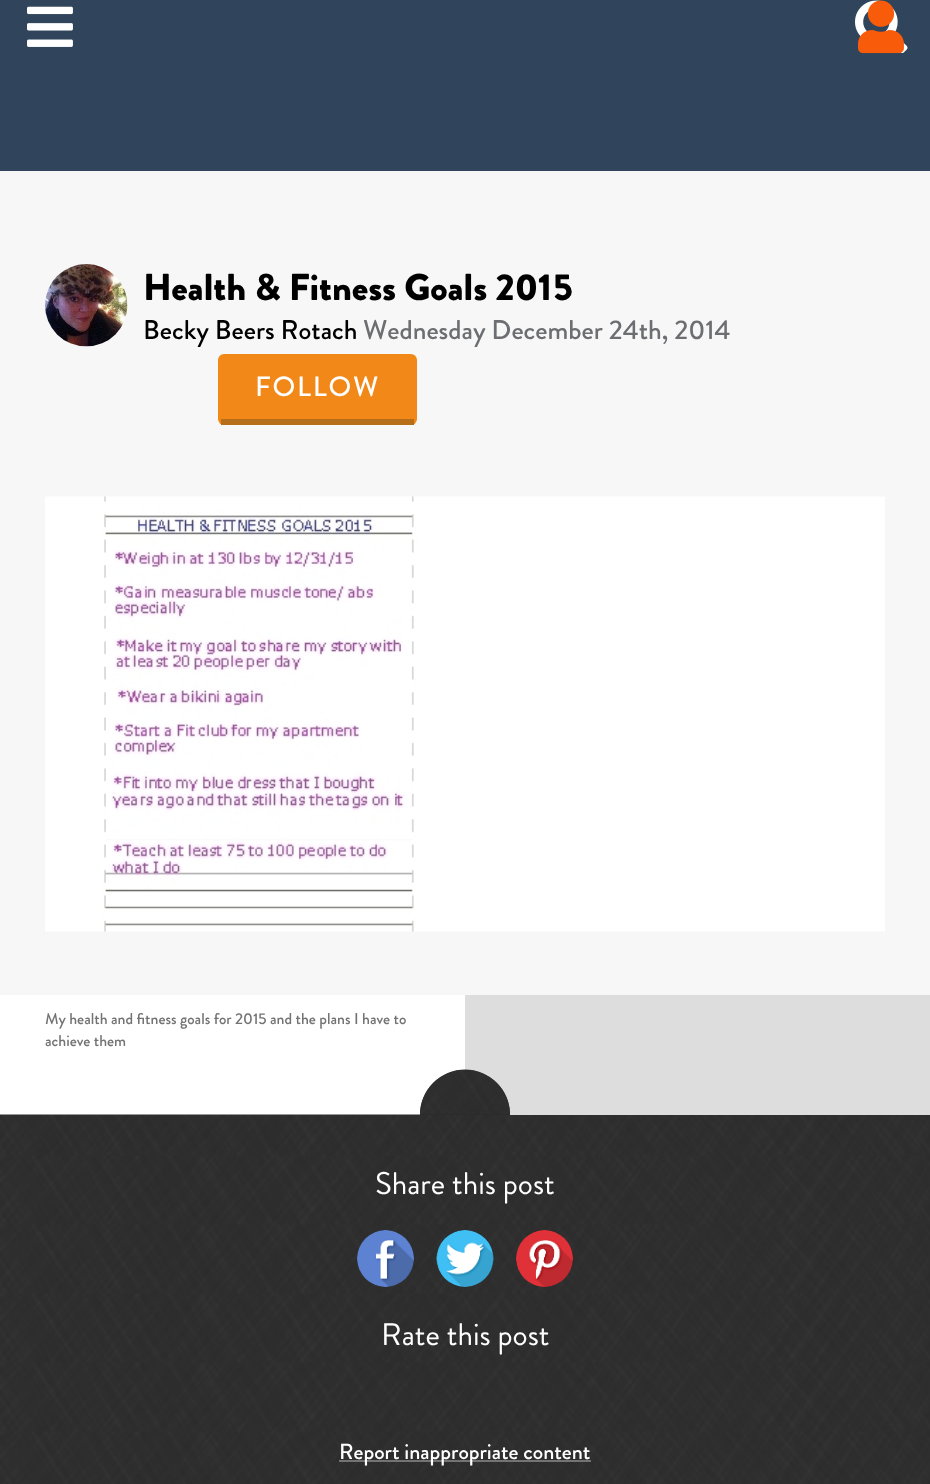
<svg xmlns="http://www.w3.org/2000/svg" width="930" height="1484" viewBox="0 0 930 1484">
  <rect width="100%" height="100%" fill="#30445c"/>
  <image x="855" y="0" width="53" height="53" href="img1.png"/>
  <image x="27" y="6" width="46" height="41" href="img2.png"/>
  <image x="858" y="0" width="46" height="54" href="img3.png"/>
  <rect x="0" y="995" width="465" height="120" fill="#ffffff"/>
  <rect x="0" y="171" width="930" height="824" fill="#f7f7f7"/>
  <image x="45" y="264" width="83" height="83" href="img4.png"/>
  <text x="143" y="300" font-family="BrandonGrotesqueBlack" font-size="37.5" font-weight="900" fill="#000000">Health &amp; Fitness Goals 2015</text>
  <text x="143" y="339" font-family="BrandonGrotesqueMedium" font-size="27" font-weight="500" fill="#000000">Becky Beers Rotach</text>
  <text x="363" y="339" font-family="BrandonGrotesqueMedium" font-size="27" font-weight="500" fill="#6d6e71">Wednesday December 24th, 2014</text>
  <rect x="218" y="354" width="199" height="71" rx="6" fill="#f18818"/>
  <rect x="221" y="419" width="193" height="6" fill="#b66e1a"/>
  <text x="255" y="396" font-family="BrandonGrotesqueMedium" font-size="28" font-weight="500" letter-spacing="1.75" fill="#ffffff">FOLLOW</text>
  <image x="45" y="496" width="840" height="436" href="img5.png"/>
  <text x="45" y="1024" font-family="BrandonGrotesqueMedium" font-size="15.6" font-weight="500" fill="#737373">My health and fitness goals for 2015 and the plans I have to</text>
  <text x="45" y="1046" font-family="BrandonGrotesqueMedium" font-size="15.6" font-weight="500" fill="#737373">achieve them</text>
  <image x="0" y="1114" width="930" height="370" href="img6.png"/>
  <rect x="465" y="995" width="465" height="120" fill="#dddddd"/>
  <path d="M465 1070C490 1070 510 1090 510 1115H420C420 1090 440 1070 465 1070Z" fill="#2b2b2b"/>
  <image x="420" y="1069" width="90" height="45" href="img7.png"/>
  <text x="375" y="1194" font-family="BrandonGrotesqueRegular" font-size="31.25" fill="#ffffff">Share this post</text>
  <image x="357" y="1230" width="57" height="57" href="img8.png"/>
  <image x="436" y="1230" width="58" height="57" href="img9.png"/>
  <image x="516" y="1230" width="57" height="57" href="img10.png"/>
  <text x="381" y="1345" font-family="BrandonGrotesqueRegular" font-size="31.25" fill="#ffffff">Rate this post</text>
  <rect x="339" y="1460" width="252" height="2" fill="#737373"/>
  <text x="339" y="1459" font-family="BrandonGrotesqueMedium" font-size="21.9" font-weight="500" fill="#ffffff">Report inappropriate content</text>
</svg>
